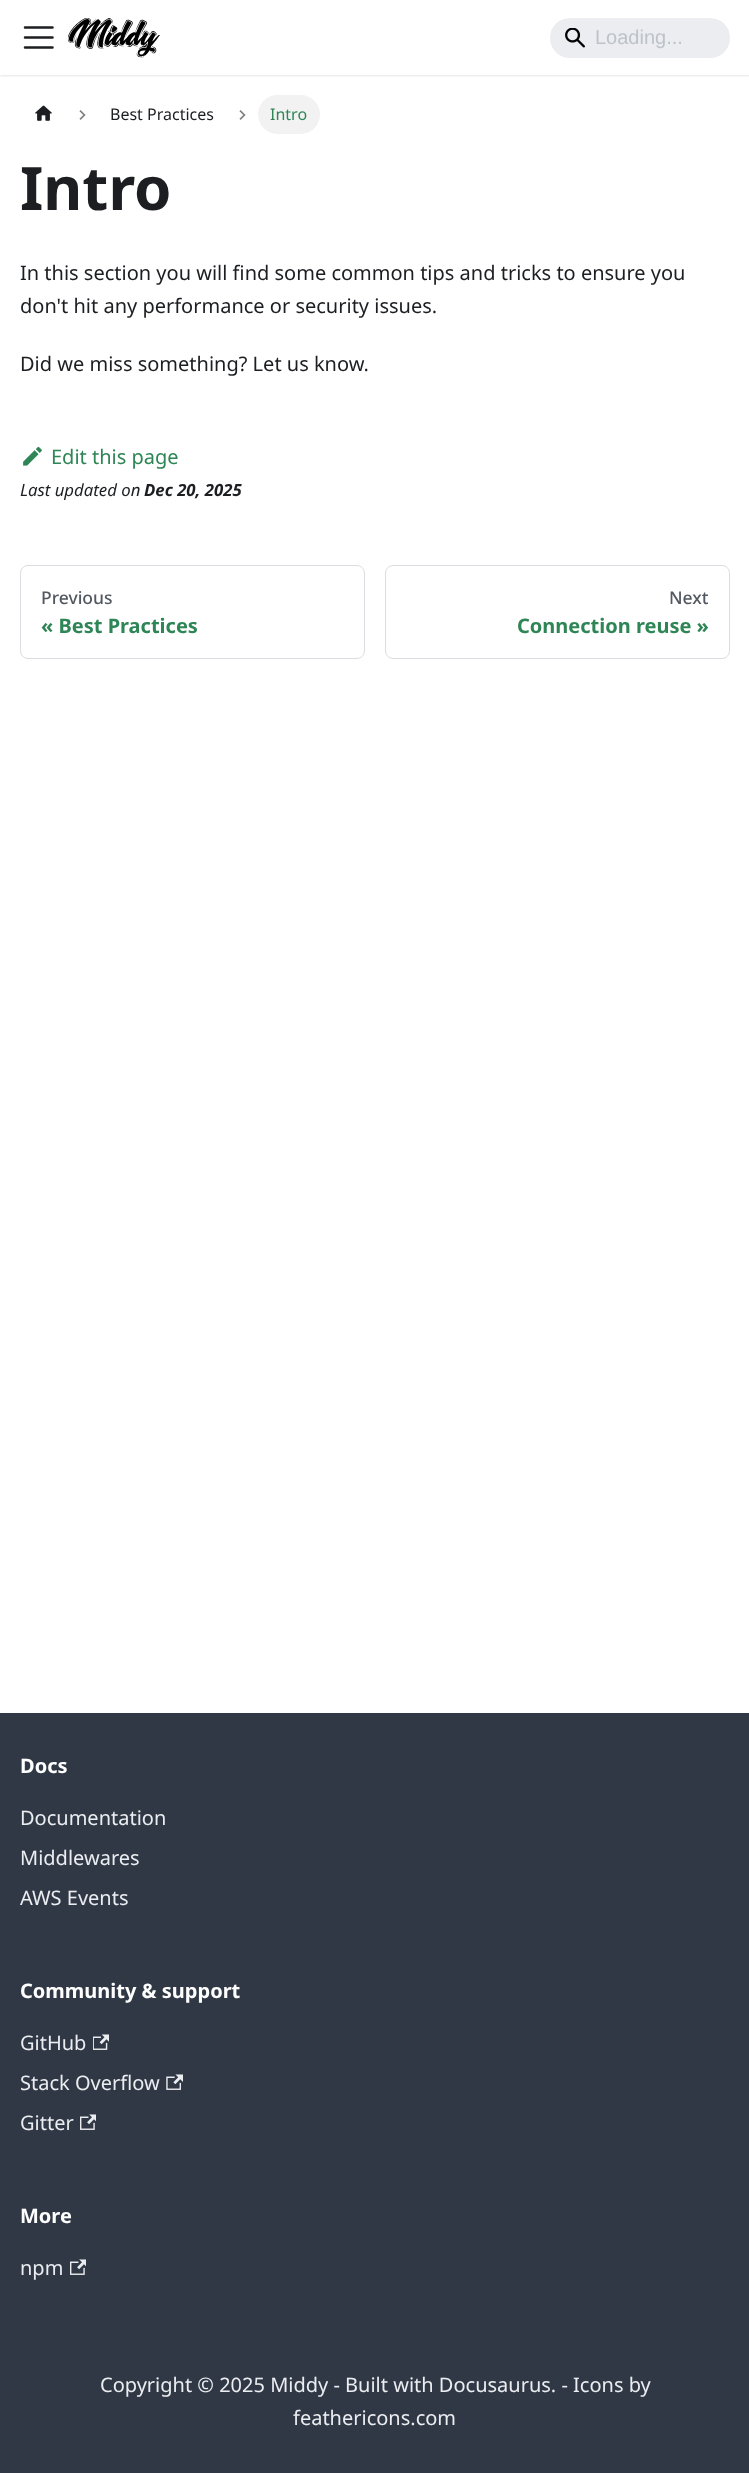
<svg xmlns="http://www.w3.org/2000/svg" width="749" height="2473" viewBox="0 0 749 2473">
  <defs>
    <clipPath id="clip1"><rect x="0" y="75" width="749" height="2"/></clipPath>
    <filter id="blur1" x="-50%" y="-200%" width="200%" height="500%"><feGaussianBlur stdDeviation="1"/></filter>
  </defs>
  <rect width="100%" height="100%" fill="#ffffff"/>
  <g clip-path="url(#clip1)">
    <rect x="0" y="1" width="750" height="75" fill="#000000" fill-opacity="0.1" filter="url(#blur1)"/>
  </g>
  <path d="M25 27.5H52.5M25 37.5H52.5M25 47.5H52.5" fill="none" stroke="#1c1e21" stroke-width="2.5" stroke-linecap="round"/>
  <image x="68" y="18" width="92" height="40" href="img1.png"/>
  <rect x="550" y="18" width="180" height="40" rx="20" fill="#ebedf0"/>
  <image x="565" y="28" width="20" height="20" href="img2.png"/>
  <text x="595" y="44" font-family="Liberation Sans" font-size="20" fill="#bec3c9">Loading...</text>
  <image x="35" y="105" width="17" height="16" href="img3.png"/>
  <image x="79" y="110" width="7" height="10" href="img4.png"/>
  <text x="110" y="120" font-family="Noto Sans" font-size="16" fill="#1c1e21">Best Practices</text>
  <image x="239" y="110" width="7" height="10" href="img4.png"/>
  <rect x="258" y="95" width="62" height="39" rx="19.5" fill="#f2f2f2"/>
  <text x="270" y="120" font-family="Noto Sans" font-size="16" fill="#2e8555">Intro</text>
  <text x="20" y="210" font-family="Noto Sans" font-size="60" font-weight="bold" fill="#1c1e21">Intro</text>
  <text x="20" y="280" font-family="Noto Sans" font-size="20" fill="#1c1e21">In this section you will find some common tips and tricks to ensure you</text>
  <text x="20" y="313" font-family="Noto Sans" font-size="20" fill="#1c1e21">don't hit any performance or security issues.</text>
  <text x="20" y="371" font-family="Noto Sans" font-size="20" fill="#1c1e21">Did we miss something? Let us know.</text>
  <image x="23" y="446" width="19" height="20" href="img5.png"/>
  <text x="51" y="464" font-family="Noto Sans" font-size="20" fill="#2e8555">Edit this page</text>
  <text x="20" y="496" font-family="Noto Sans" font-size="16.75" font-style="italic" fill="#1c1e21">Last updated on</text>
  <text x="144" y="496" font-family="Noto Sans" font-size="16.75" font-weight="bold" font-style="italic" fill="#1c1e21">Dec 20, 2025</text>
  <rect x="20.5" y="565.5" width="344" height="93" rx="7.5" fill="none" stroke="#dadde1"/>
  <text x="41" y="604" font-family="Noto Sans" font-size="17.5" font-weight="500" fill="#525860">Previous</text>
  <text x="41" y="633" font-family="Noto Sans" font-size="20" font-weight="bold" fill="#2e8555">« Best Practices</text>
  <rect x="385.5" y="565.5" width="344" height="93" rx="7.5" fill="none" stroke="#dadde1"/>
  <text x="669" y="604" font-family="Noto Sans" font-size="17.5" font-weight="500" fill="#525860">Next</text>
  <text x="517" y="633" font-family="Noto Sans" font-size="20" font-weight="bold" fill="#2e8555">Connection reuse »</text>
  <rect x="0" y="1713" width="749" height="760" fill="#303846"/>
  <text x="20" y="1773" font-family="Noto Sans" font-size="20" font-weight="bold" fill="#ffffff">Docs</text>
  <text x="20" y="1825" font-family="Noto Sans" font-size="20" fill="#ebedf0">Documentation</text>
  <text x="20" y="1865" font-family="Noto Sans" font-size="20" fill="#ebedf0">Middlewares</text>
  <text x="20" y="1905" font-family="Noto Sans" font-size="20" fill="#ebedf0">AWS Events</text>
  <text x="20" y="1998" font-family="Noto Sans" font-size="20" font-weight="bold" fill="#ffffff">Community &amp; support</text>
  <text x="20" y="2050" font-family="Noto Sans" font-size="20" fill="#ebedf0">GitHub</text>
  <image x="93" y="2034" width="16" height="16" href="img6.png"/>
  <text x="20" y="2090" font-family="Noto Sans" font-size="20" fill="#ebedf0">Stack Overflow</text>
  <image x="166" y="2074" width="17" height="16" href="img7.png"/>
  <text x="20" y="2130" font-family="Noto Sans" font-size="20" fill="#ebedf0">Gitter</text>
  <image x="80" y="2114" width="16" height="16" href="img8.png"/>
  <text x="20" y="2223" font-family="Noto Sans" font-size="20" font-weight="bold" fill="#ffffff">More</text>
  <text x="20" y="2275" font-family="Noto Sans" font-size="20" fill="#ebedf0">npm</text>
  <image x="70" y="2259" width="16" height="16" href="img8.png"/>
  <text x="100" y="2392" font-family="Noto Sans" font-size="20" fill="#ebedf0">Copyright © 2025 Middy - Built with Docusaurus. - Icons by</text>
  <text x="293" y="2425" font-family="Noto Sans" font-size="20" fill="#ebedf0">feathericons.com</text>
</svg>
